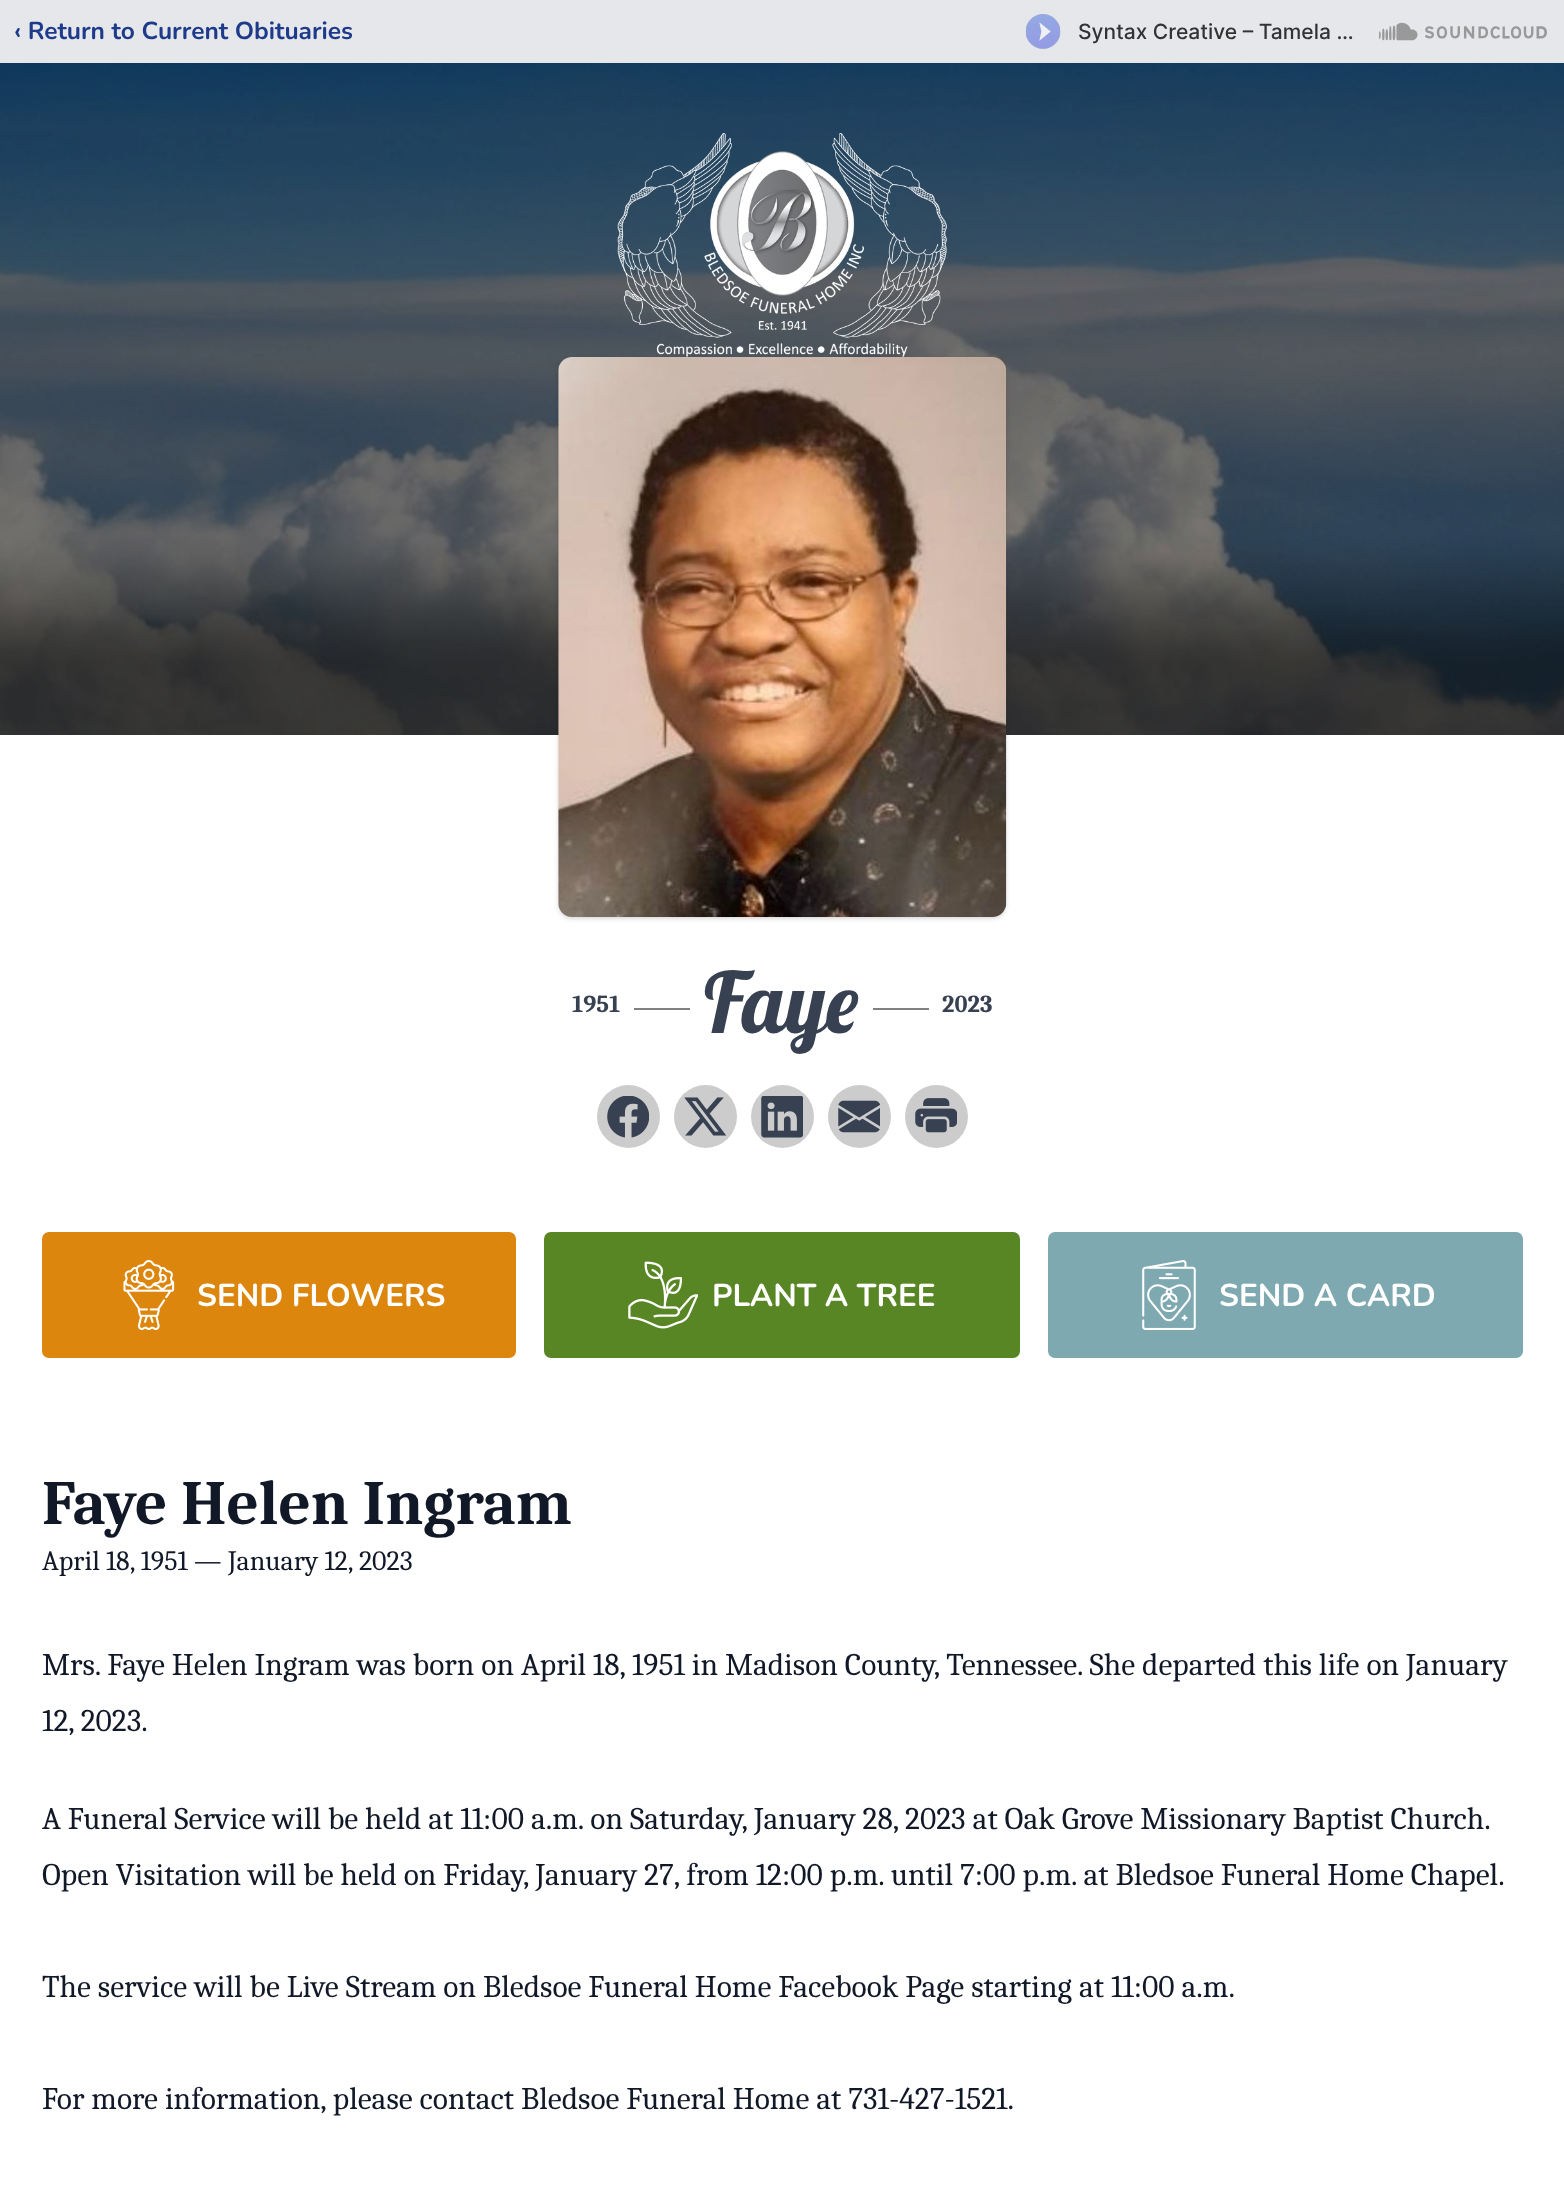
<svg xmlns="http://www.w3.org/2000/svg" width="1564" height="2197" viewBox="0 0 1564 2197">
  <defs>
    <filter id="blur1" x="-50%" y="-200%" width="200%" height="500%"><feGaussianBlur stdDeviation="2"/></filter>
    <filter id="blur2" x="-50%" y="-200%" width="200%" height="500%"><feGaussianBlur stdDeviation="2.5"/></filter>
  </defs>
  <rect width="100%" height="100%" fill="#ffffff"/>
  <rect x="0" y="0" width="1564" height="63" fill="#e5e7eb"/>
  <text x="14" y="39" font-family="Nunito" font-size="24.5" font-weight="bold" fill="#1e3a8a">‹ Return to Current Obituaries</text>
  <image x="1025" y="14" width="522" height="35" href="img1.png"/>
  <image x="0" y="63" width="1564" height="672" href="img2.png"/>
  <image x="617" y="133" width="330" height="224" href="img3.png"/>
  <rect x="560" y="361" width="445" height="556" rx="12" fill="#000000" fill-opacity="0.1" filter="url(#blur1)"/>
  <rect x="558" y="359" width="448" height="560" rx="14" fill="#000000" fill-opacity="0.1" filter="url(#blur2)"/>
  <image x="558" y="357" width="449" height="560" href="img4.png"/>
  <text x="572" y="1012" font-family="Caladea" font-size="24.5" font-weight="bold" fill="#374151">1951</text>
  <rect x="634" y="1008" width="56" height="2" fill="#808080"/>
  <text x="704" y="1033" font-family="Lobster" font-size="84" fill="#374151">Faye</text>
  <rect x="873" y="1008" width="56" height="2" fill="#808080"/>
  <text x="942" y="1012" font-family="Caladea" font-size="24.5" font-weight="bold" fill="#374151">2023</text>
  <circle cx="628.5" cy="1116.5" r="31.5" fill="#cccccc"/>
  <image x="607" y="1096" width="42" height="42" href="img5.png"/>
  <circle cx="705.5" cy="1116.5" r="31.5" fill="#cccccc"/>
  <image x="684" y="1097" width="42" height="39" href="img6.png"/>
  <circle cx="782.5" cy="1116.5" r="31.5" fill="#cccccc"/>
  <image x="761" y="1096" width="42" height="42" href="img7.png"/>
  <circle cx="859.5" cy="1116.5" r="31.5" fill="#cccccc"/>
  <image x="838" y="1100" width="42" height="33" href="img8.png"/>
  <circle cx="936.5" cy="1116.5" r="31.5" fill="#cccccc"/>
  <image x="915" y="1098" width="42" height="35" href="img9.png"/>
  <rect x="42" y="1232" width="474" height="126" rx="7" fill="#dc860d"/>
  <image x="123" y="1260" width="52" height="70" href="img10.png"/>
  <text x="197" y="1306" font-family="Nunito" font-size="31.5" font-weight="bold" fill="#ffffff">SEND FLOWERS</text>
  <rect x="544" y="1232" width="476" height="126" rx="7" fill="#588624"/>
  <image x="628" y="1261" width="70" height="68" href="img11.png"/>
  <text x="712" y="1306" font-family="Nunito" font-size="31.5" font-weight="bold" fill="#ffffff">PLANT A TREE</text>
  <rect x="1048" y="1232" width="475" height="126" rx="7" fill="#7ea9b0"/>
  <image x="1142" y="1260" width="54" height="70" href="img12.png"/>
  <text x="1219" y="1306" font-family="Nunito" font-size="31.5" font-weight="bold" fill="#ffffff">SEND A CARD</text>
  <text x="42" y="1524" font-family="Caladea" font-size="63" font-weight="bold" fill="#111827">Faye Helen Ingram</text>
  <text x="42" y="1570" font-family="Caladea" font-size="28" fill="#111827">April 18, 1951 — January 12, 2023</text>
  <text x="42" y="1675" font-family="Caladea" font-size="31.5" fill="#111827">Mrs. Faye Helen Ingram was born on April 18, 1951 in Madison County, Tennessee. She departed this life on January</text>
  <text x="42" y="1731" font-family="Caladea" font-size="31.5" fill="#111827">12, 2023.</text>
  <text x="42" y="1829" font-family="Caladea" font-size="31.5" fill="#111827">A Funeral Service will be held at 11:00 a.m. on Saturday, January 28, 2023 at Oak Grove Missionary Baptist Church.</text>
  <text x="42" y="1885" font-family="Caladea" font-size="31.5" fill="#111827">Open Visitation will be held on Friday, January 27, from 12:00 p.m. until 7:00 p.m. at Bledsoe Funeral Home Chapel.</text>
  <text x="42" y="1997" font-family="Caladea" font-size="31.5" fill="#111827">The service will be Live Stream on Bledsoe Funeral Home Facebook Page starting at 11:00 a.m.</text>
  <text x="42" y="2109" font-family="Caladea" font-size="31.5" fill="#111827">For more information, please contact Bledsoe Funeral Home at 731-427-1521.</text>
</svg>
